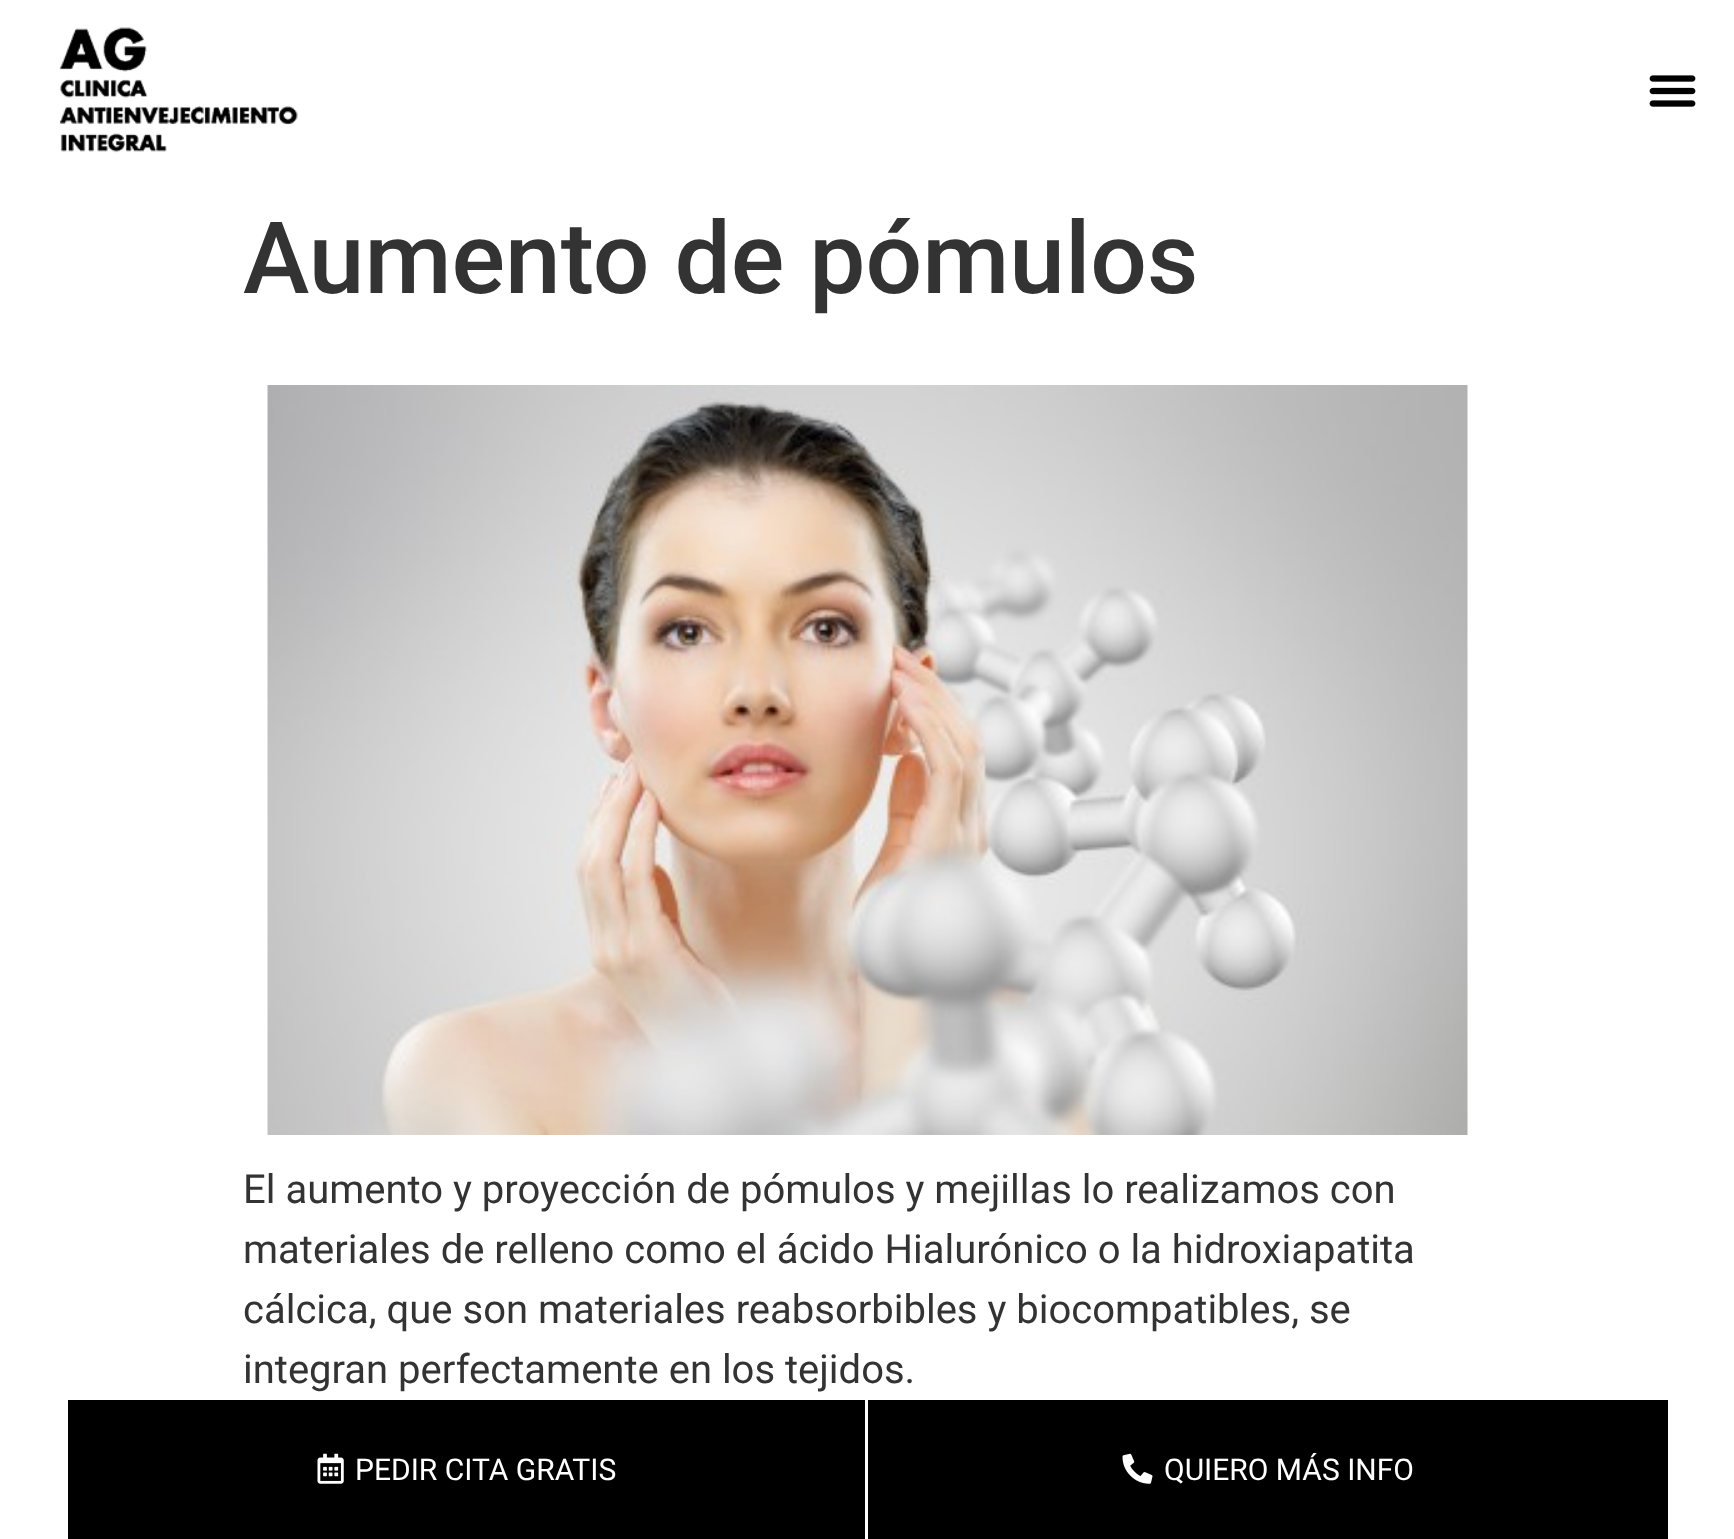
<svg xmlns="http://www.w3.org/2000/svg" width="1734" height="1539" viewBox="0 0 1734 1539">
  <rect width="100%" height="100%" fill="#ffffff"/>
  <image x="59" y="27" width="239" height="126" href="img1.png"/>
  <image x="1649" y="75" width="47" height="32" href="img2.png"/>
  <text x="243" y="293" font-family="Roboto" font-size="100" font-weight="500" fill="#333333">Aumento de pómulos</text>
  <image x="267" y="385" width="1201" height="750" href="img3.png"/>
  <text x="243" y="1203" font-family="Roboto" font-size="40" fill="#333333">El aumento y proyección de pómulos y mejillas lo realizamos con</text>
  <text x="243" y="1263" font-family="Roboto" font-size="40" fill="#333333">materiales de relleno como el ácido Hialurónico o la hidroxiapatita</text>
  <text x="243" y="1323" font-family="Roboto" font-size="40" fill="#333333">cálcica, que son materiales reabsorbibles y biocompatibles, se</text>
  <text x="243" y="1383" font-family="Roboto" font-size="40" fill="#333333">integran perfectamente en los tejidos.</text>
  <rect x="68" y="1400" width="1600" height="139" fill="#000000"/>
  <rect x="865" y="1400" width="3" height="139" fill="#ffffff"/>
  <image x="317" y="1453" width="27" height="31" href="img4.png"/>
  <text x="355" y="1480" font-family="Roboto" font-size="30" fill="#ffffff">PEDIR CITA GRATIS</text>
  <image x="1122" y="1453" width="31" height="31" href="img5.png"/>
  <text x="1164" y="1480" font-family="Roboto" font-size="30" fill="#ffffff">QUIERO MÁS INFO</text>
</svg>
